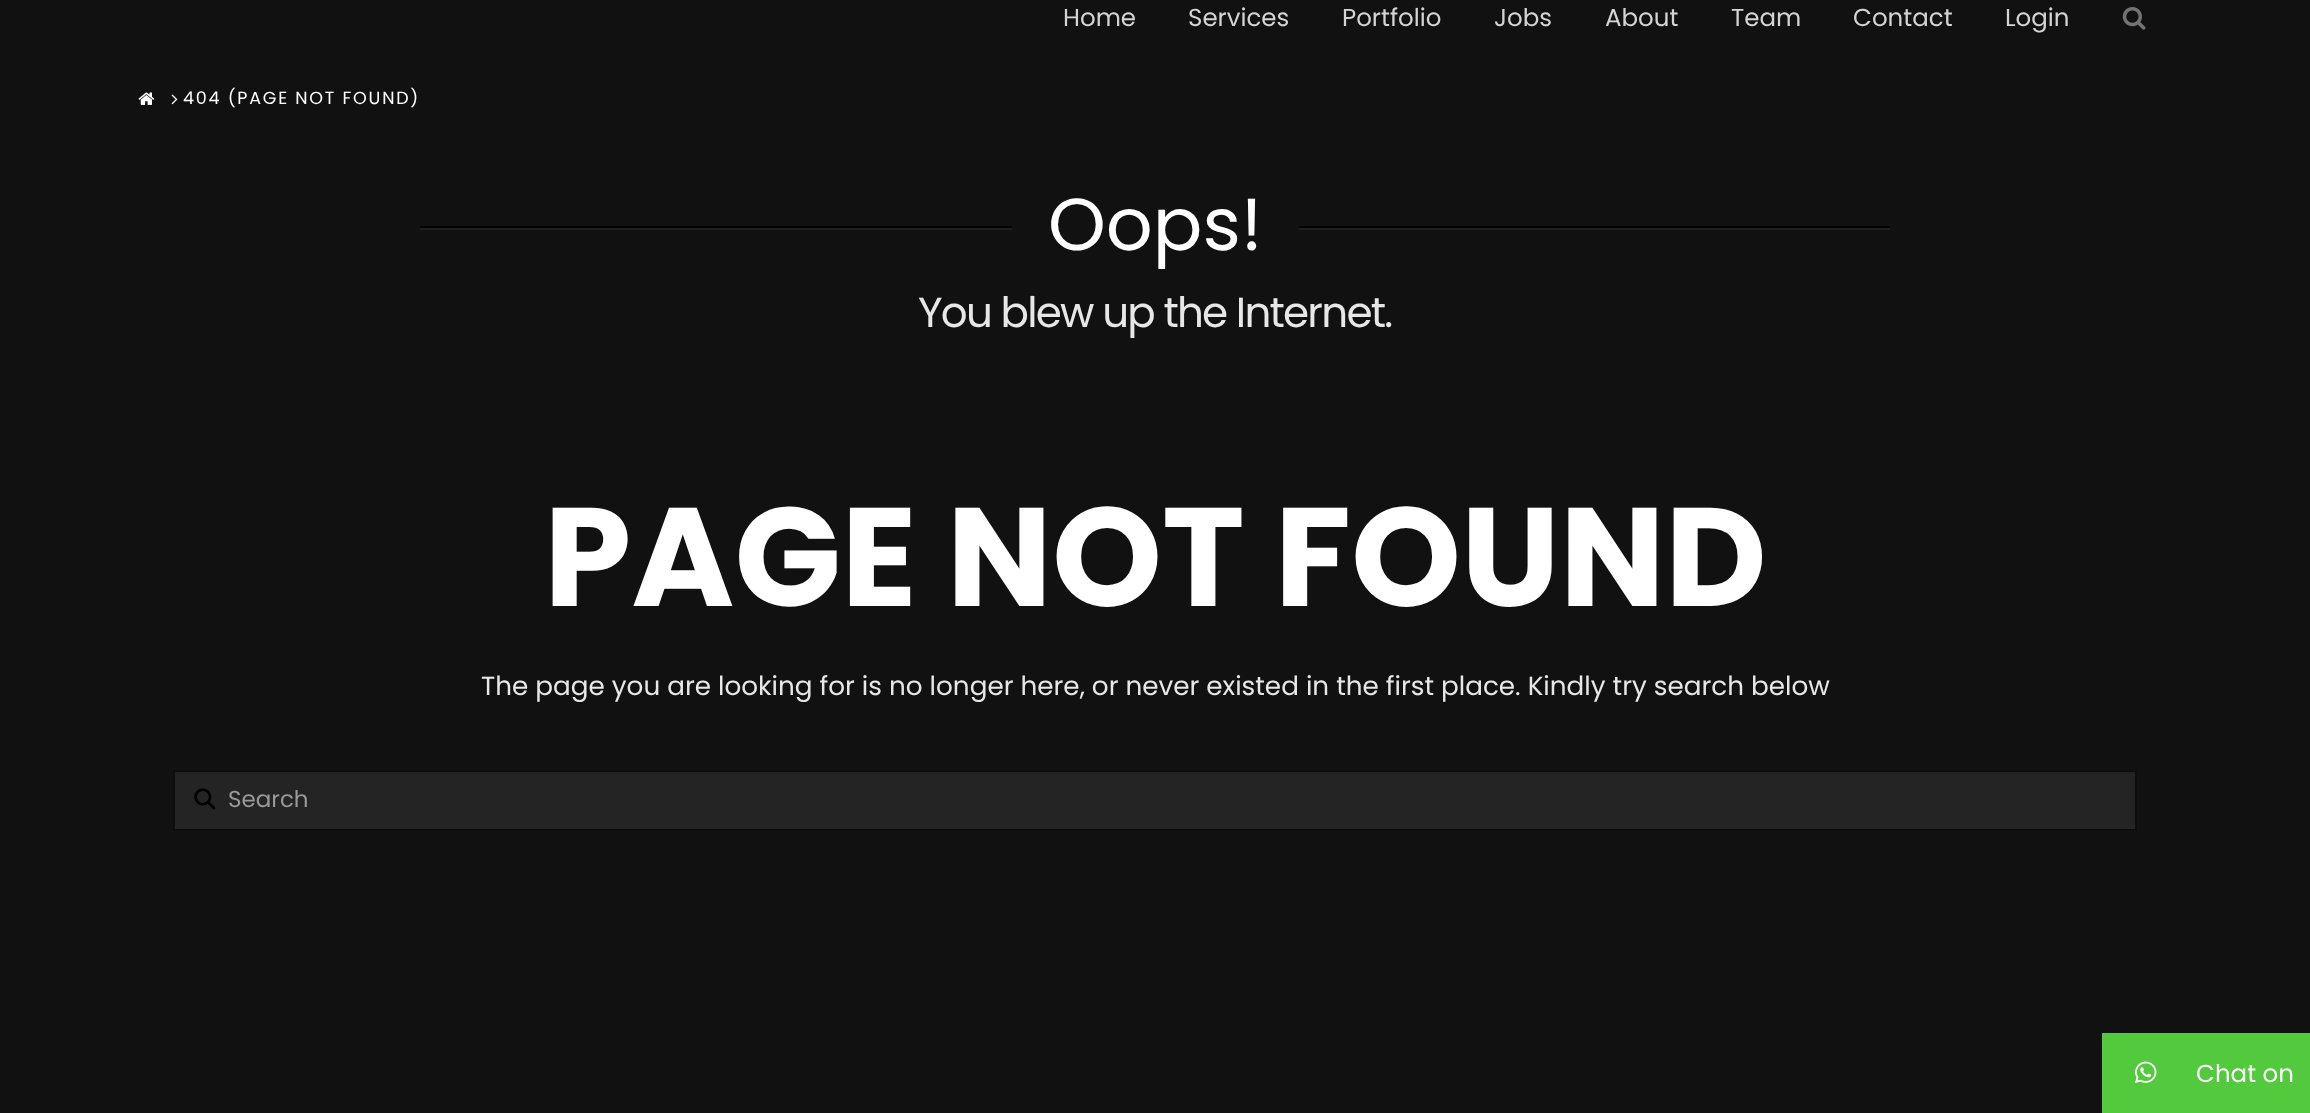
<svg xmlns="http://www.w3.org/2000/svg" width="2310" height="1113" viewBox="0 0 2310 1113">
  <rect width="100%" height="100%" fill="#111111"/>
  <text x="1063" y="26" font-family="Poppins" font-size="24.5" fill="#d4d4d4">Home</text>
  <text x="1188" y="26" font-family="Poppins" font-size="24.5" fill="#d4d4d4">Services</text>
  <text x="1342" y="26" font-family="Poppins" font-size="24.5" fill="#d4d4d4">Portfolio</text>
  <text x="1494" y="26" font-family="Poppins" font-size="24.5" fill="#d4d4d4">Jobs</text>
  <text x="1605" y="26" font-family="Poppins" font-size="24.5" fill="#d4d4d4">About</text>
  <text x="1731" y="26" font-family="Poppins" font-size="24.5" fill="#d4d4d4">Team</text>
  <text x="1853" y="26" font-family="Poppins" font-size="24.5" fill="#d4d4d4">Contact</text>
  <text x="2005" y="26" font-family="Poppins" font-size="24.5" fill="#d4d4d4">Login</text>
  <image x="2122" y="7" width="24" height="23" href="img1.png"/>
  <image x="138" y="92" width="17" height="13" href="img2.png"/>
  <image x="171" y="94" width="7" height="11" href="img3.png"/>
  <text x="183" y="104" font-family="Poppins" font-size="17.5" letter-spacing="1.75" fill="#ffffff">404 (PAGE NOT FOUND)</text>
  <rect x="420" y="228" width="592" height="2" fill="#1f1f1f"/>
  <rect x="420" y="226" width="592" height="2" fill="#040404"/>
  <text x="1048" y="250" font-family="Poppins" font-size="73.5" fill="#ffffff">Oops!</text>
  <rect x="1299" y="228" width="591" height="2" fill="#1f1f1f"/>
  <rect x="1299" y="226" width="591" height="2" fill="#040404"/>
  <text x="918" y="327" font-family="Poppins" font-size="42" letter-spacing="-1.75" fill="#e7e7e7">You blew up the Internet.</text>
  <text x="544" y="606" font-family="Poppins" font-size="140" font-weight="bold" fill="#ffffff">PAGE NOT FOUND</text>
  <text x="481" y="695" font-family="Poppins" font-size="26.25" fill="#e7e7e7">The page you are looking for is no longer here, or never existed in the first place. Kindly try search below</text>
  <rect x="175" y="774" width="1960" height="55" fill="#242424"/>
  <rect x="175" y="772" width="1960" height="2" fill="#212121"/>
  <rect x="174" y="771" width="1962" height="59" fill="none" stroke="#0d0d0d" stroke-width="2"/>
  <image x="194" y="788" width="22" height="22" href="img4.png"/>
  <text x="228" y="807" font-family="Poppins" font-size="23" fill="#999999">Search</text>
  <rect x="2102" y="1033" width="208" height="80" fill="#53c93e"/>
  <image x="2135" y="1061" width="22" height="22" href="img5.png"/>
  <text x="2196" y="1082" font-family="Poppins" font-size="24.5" fill="#ffffff">Chat on</text>
</svg>
